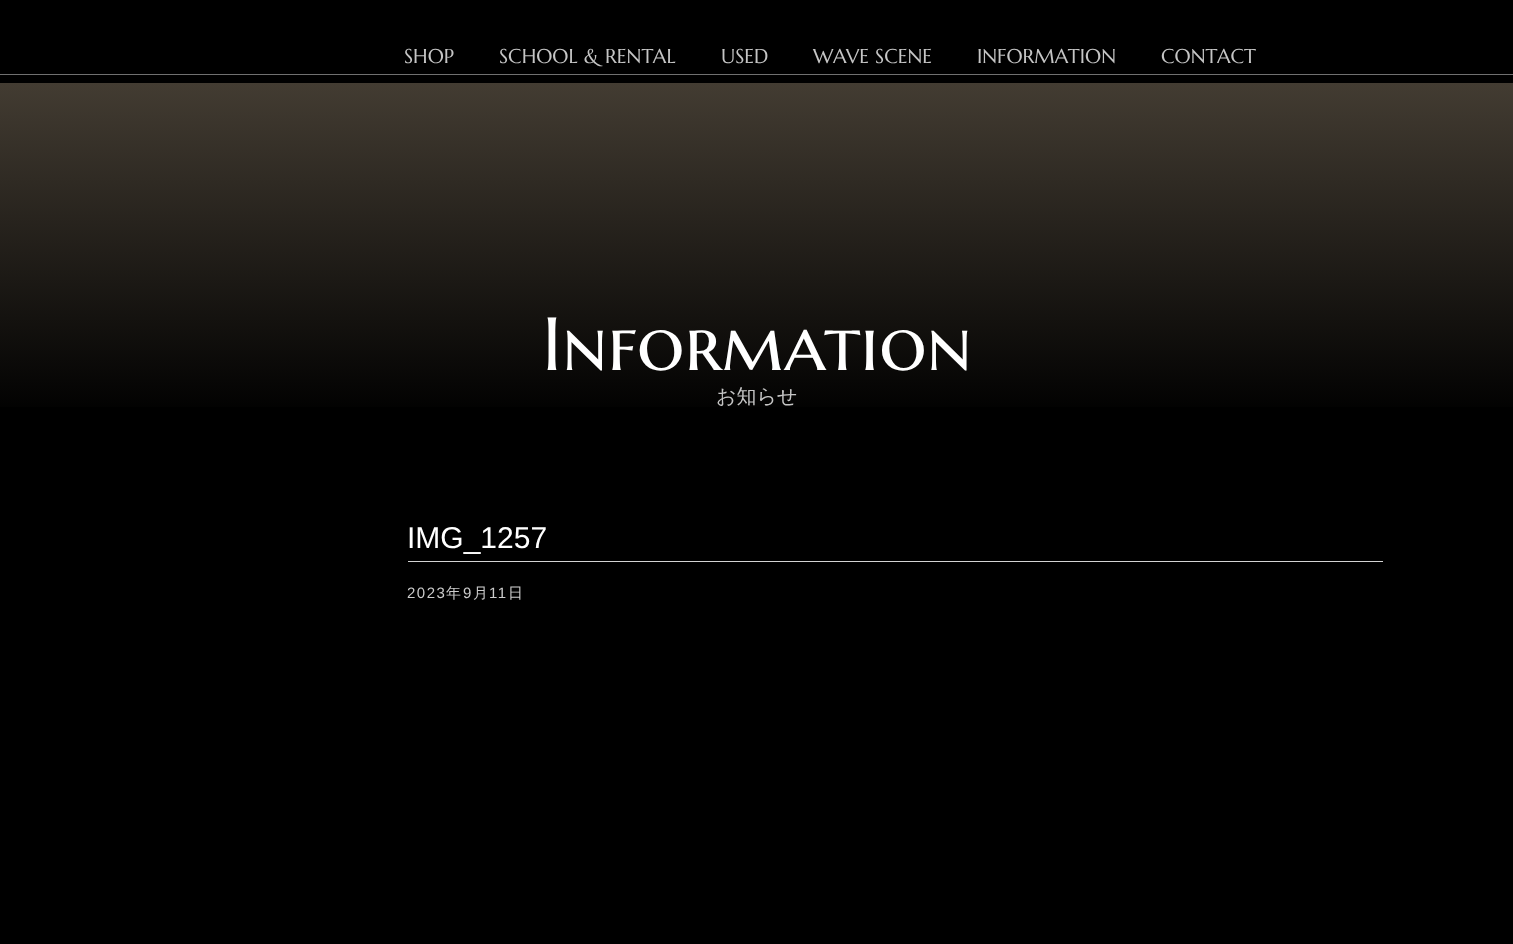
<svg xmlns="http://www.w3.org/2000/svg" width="1513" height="944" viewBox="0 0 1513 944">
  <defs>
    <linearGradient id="g1" gradientUnits="userSpaceOnUse" x1="757" y1="82" x2="757" y2="420"><stop offset="0" stop-color="#433c32"/><stop offset="1" stop-color="#000000"/></linearGradient>
  </defs>
  <rect width="100%" height="100%" fill="#000000"/>
  <rect x="0" y="74" width="1513" height="1" fill="#707070"/>
  <text x="404" y="63" font-family="Marcellus SC" font-size="20" fill="#c5c5c5">SHOP</text>
  <text x="499" y="63" font-family="Marcellus SC" font-size="20" fill="#c5c5c5">SCHOOL &amp; RENTAL</text>
  <text x="721" y="63" font-family="Marcellus SC" font-size="20" fill="#c5c5c5">USED</text>
  <text x="813" y="63" font-family="Marcellus SC" font-size="20" fill="#c5c5c5">WAVE SCENE</text>
  <text x="977" y="63" font-family="Marcellus SC" font-size="20" fill="#c5c5c5">INFORMATION</text>
  <text x="1161" y="63" font-family="Marcellus SC" font-size="20" fill="#c5c5c5">CONTACT</text>
  <rect x="0" y="83" width="1513" height="324" fill="url(#g1)"/>
  <text x="542" y="370" font-family="Marcellus SC" font-size="75" fill="#ffffff">Information</text>
  <text x="716" y="403" font-family="WenQuanYi Zen Hei" font-size="20" font-weight="500" fill="#c5c5c5">お知らせ</text>
  <rect x="408" y="561" width="975" height="1" fill="#d3d3d3"/>
  <text x="407" y="548" font-family="Liberation Sans" font-size="30" fill="#ffffff">IMG_1257</text>
  <text x="407" y="598" font-family="Liberation Sans" font-size="15" letter-spacing="1.5" fill="#cccccc">2023</text>
  <text x="446" y="598" font-family="WenQuanYi Zen Hei" font-size="15" font-weight="500" letter-spacing="1.5" fill="#cccccc">年</text>
  <text x="463" y="598" font-family="Liberation Sans" font-size="15" letter-spacing="1.5" fill="#cccccc">9</text>
  <text x="473" y="598" font-family="WenQuanYi Zen Hei" font-size="15" font-weight="500" letter-spacing="1.5" fill="#cccccc">月</text>
  <text x="489" y="598" font-family="Liberation Sans" font-size="15" letter-spacing="1.5" fill="#cccccc">11</text>
  <text x="508" y="598" font-family="WenQuanYi Zen Hei" font-size="15" font-weight="500" letter-spacing="1.5" fill="#cccccc">日</text>
</svg>
